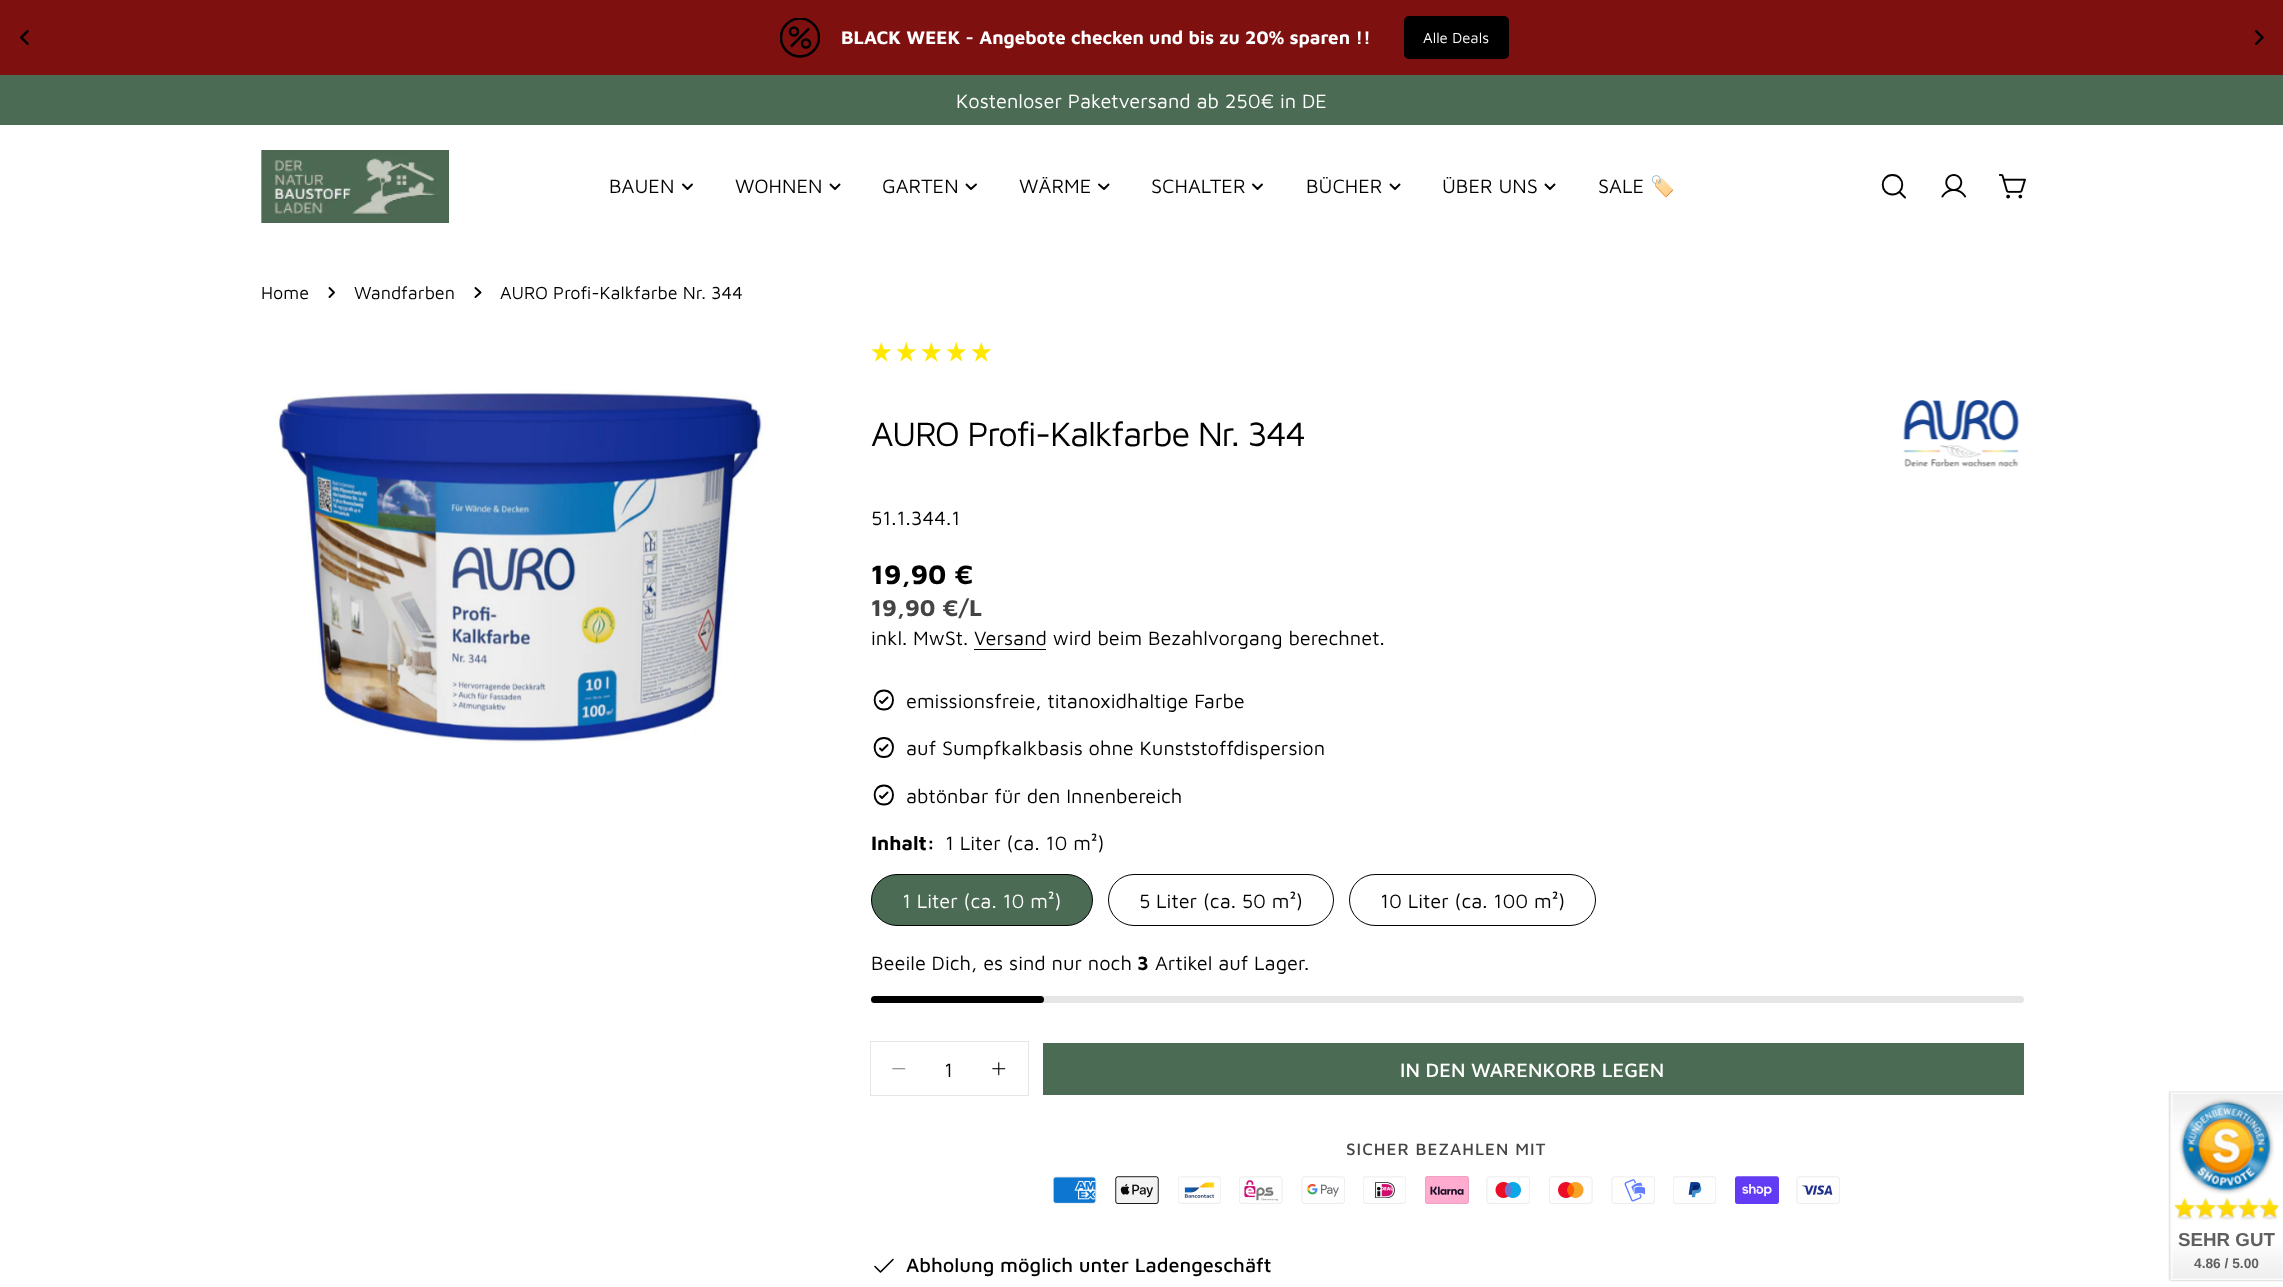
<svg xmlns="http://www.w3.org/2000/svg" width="2283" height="1287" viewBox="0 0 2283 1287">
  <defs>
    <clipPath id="clip1"><rect x="780" y="18" width="40" height="40"/></clipPath>
  </defs>
  <rect width="100%" height="100%" fill="#ffffff"/>
  <rect x="0" y="0" width="2283" height="75" fill="#7e1010"/>
  <image x="20" y="30" width="9" height="15" href="img1.png"/>
  <image x="2255" y="30" width="9" height="15" href="img2.png"/>
  <g clip-path="url(#clip1)">
    <circle cx="800" cy="37.5" r="19" fill="none" stroke="#000000" stroke-width="2.5"/>
  </g>
  <path d="M791 46.5L809 28.5" fill="none" stroke="#000000" stroke-width="2.5"/>
  <circle cx="806" cy="43.5" r="4" fill="none" stroke="#000000" stroke-width="2.5"/>
  <circle cx="794" cy="31.5" r="4" fill="none" stroke="#000000" stroke-width="2.5"/>
  <text x="841" y="44" font-family="Maven Pro" font-size="18.75" font-weight="bold" fill="#ffffff">BLACK WEEK - Angebote checken und bis zu 20% sparen !!</text>
  <rect x="1404" y="16" width="105" height="43" rx="5" fill="#000000"/>
  <text x="1423" y="43" font-family="Maven Pro" font-size="15" fill="#ffffff">Alle Deals</text>
  <rect x="0" y="75" width="2283" height="50" fill="#4c6b54"/>
  <text x="956" y="108" font-family="Maven Pro" font-size="20" fill="#ffffff">Kostenloser Paketversand ab 250€ in DE</text>
  <image x="261" y="150" width="188" height="73" href="img3.png"/>
  <text x="609" y="193" font-family="Maven Pro" font-size="20" fill="#000000">BAUEN</text>
  <path d="M692 184.5L687.5 189L683 184.5" fill="none" stroke="#000000" stroke-width="1.9" stroke-linecap="round" stroke-linejoin="round"/>
  <text x="735" y="193" font-family="Maven Pro" font-size="20" fill="#000000">WOHNEN</text>
  <path d="M839.5 184.5L835 189L830.5 184.5" fill="none" stroke="#000000" stroke-width="1.9" stroke-linecap="round" stroke-linejoin="round"/>
  <text x="882" y="193" font-family="Maven Pro" font-size="20" fill="#000000">GARTEN</text>
  <path d="M976 184.5L971 189L966.5 184.5" fill="none" stroke="#000000" stroke-width="1.9" stroke-linecap="round" stroke-linejoin="round"/>
  <text x="1019" y="193" font-family="Maven Pro" font-size="20" fill="#000000">WÄRME</text>
  <path d="M1108.5 184.5L1104 189L1099 184.5" fill="none" stroke="#000000" stroke-width="1.9" stroke-linecap="round" stroke-linejoin="round"/>
  <text x="1151" y="193" font-family="Maven Pro" font-size="20" fill="#000000">SCHALTER</text>
  <path d="M1262 184.5L1257.5 189L1253 184.5" fill="none" stroke="#000000" stroke-width="1.9" stroke-linecap="round" stroke-linejoin="round"/>
  <text x="1306" y="193" font-family="Maven Pro" font-size="20" fill="#000000">BÜCHER</text>
  <path d="M1399.5 184.5L1395 189L1390.5 184.5" fill="none" stroke="#000000" stroke-width="1.9" stroke-linecap="round" stroke-linejoin="round"/>
  <text x="1442" y="193" font-family="Maven Pro" font-size="20" fill="#000000">ÜBER UNS</text>
  <path d="M1554.5 184.5L1550 189L1545.5 184.5" fill="none" stroke="#000000" stroke-width="1.9" stroke-linecap="round" stroke-linejoin="round"/>
  <text x="1598" y="193" font-family="Maven Pro" font-size="20" fill="#000000">SALE</text>
  <text x="1650" y="193" font-family="Noto Color Emoji" font-size="20" fill="#000000">🏷️</text>
  <path d="M1892.5 194.5C1905.5 194.5 1905.5 175 1892.5 175C1879.5 175 1879.5 194.5 1892.5 194.5ZM1899.5 192L1905 197.5" fill="none" stroke="#000000" stroke-width="1.9" stroke-linecap="round" stroke-linejoin="round"/>
  <image x="1941" y="174" width="25" height="24" href="img4.png"/>
  <image x="1999" y="174" width="27" height="25" href="img5.png"/>
  <text x="261" y="299" font-family="Maven Pro" font-size="18" fill="#000000">Home</text>
  <path d="M329.5 288L334 292.5L329.5 297" fill="none" stroke="#000000" stroke-width="1.9" stroke-linecap="round" stroke-linejoin="round"/>
  <text x="354" y="299" font-family="Maven Pro" font-size="18" fill="#000000">Wandfarben</text>
  <path d="M475.5 288L480.5 292.5L475.5 297" fill="none" stroke="#000000" stroke-width="1.9" stroke-linecap="round" stroke-linejoin="round"/>
  <text x="500" y="299" font-family="Maven Pro" font-size="18" fill="#000000">AURO Profi-Kalkfarbe Nr. 344</text>
  <image x="274" y="390" width="489" height="355" href="img6.png"/>
  <image x="871" y="342" width="21" height="20" href="img7.png"/>
  <image x="896" y="342" width="21" height="20" href="img7.png"/>
  <image x="921" y="342" width="21" height="20" href="img7.png"/>
  <image x="946" y="342" width="21" height="20" href="img7.png"/>
  <image x="971" y="342" width="21" height="20" href="img7.png"/>
  <text x="871" y="446" font-family="Maven Pro" font-size="35" letter-spacing="-1.4" fill="#000000">AURO Profi-Kalkfarbe Nr. 344</text>
  <image x="1903" y="400" width="117" height="67" href="img8.png"/>
  <text x="871" y="525" font-family="Maven Pro" font-size="20" fill="#000000">51.1.344.1</text>
  <text x="871" y="584" font-family="Maven Pro" font-size="27.5" font-weight="bold" fill="#000000">19,90 €</text>
  <text x="871" y="616" font-family="Maven Pro" font-size="23.5" font-weight="bold" fill="#444444">19,90 €/L</text>
  <text x="871" y="645" font-family="Maven Pro" font-size="20" fill="#000000">inkl. MwSt. Versand wird beim Bezahlvorgang berechnet.</text>
  <rect x="974" y="649" width="72" height="1" fill="#000000"/>
  <path d="M880 701L882 703L887.5 697.5M884 709.5C896 709.5 896 690.5 884 690.5C871.5 690.5 871.5 709.5 884 709.5ZM880 748.5L882 750.5L887.5 745" fill="none" stroke="#000000" stroke-width="1.9" stroke-linecap="round" stroke-linejoin="round"/>
  <text x="906" y="708" font-family="Maven Pro" font-size="20" fill="#000000">emissionsfreie, titanoxidhaltige Farbe</text>
  <path d="M884 757C896 757 896 738 884 738C871.5 738 871.5 757 884 757ZM880 796L882 798L887.5 792.5" fill="none" stroke="#000000" stroke-width="1.9" stroke-linecap="round" stroke-linejoin="round"/>
  <text x="906" y="755" font-family="Maven Pro" font-size="20" fill="#000000">auf Sumpfkalkbasis ohne Kunststoffdispersion</text>
  <path d="M884 804.5C896 804.5 896 785.5 884 785.5C871.5 785.5 871.5 804.5 884 804.5Z" fill="none" stroke="#000000" stroke-width="1.9" stroke-linecap="round" stroke-linejoin="round"/>
  <text x="906" y="803" font-family="Maven Pro" font-size="20" fill="#000000">abtönbar für den Innenbereich</text>
  <text x="871" y="850" font-family="Maven Pro" font-size="20" font-weight="bold" fill="#000000">Inhalt:</text>
  <text x="945" y="850" font-family="Maven Pro" font-size="20" fill="#000000">1 Liter (ca. 10 m²)</text>
  <rect x="871.5" y="874.5" width="221" height="51" rx="25.5" fill="#4c6b54" stroke="#000000"/>
  <text x="902" y="908" font-family="Maven Pro" font-size="20" fill="#ffffff">1 Liter (ca. 10 m²)</text>
  <rect x="1108.5" y="874.5" width="225" height="51" rx="25.5" fill="none" stroke="#000000"/>
  <text x="1139" y="908" font-family="Maven Pro" font-size="20" fill="#000000">5 Liter (ca. 50 m²)</text>
  <rect x="1349.5" y="874.5" width="246" height="51" rx="25.5" fill="none" stroke="#000000"/>
  <text x="1380" y="908" font-family="Maven Pro" font-size="20" fill="#000000">10 Liter (ca. 100 m²)</text>
  <text x="871" y="970" font-family="Maven Pro" font-size="20" fill="#000000">Beeile Dich, es sind nur noch</text>
  <text x="1137" y="970" font-family="Maven Pro" font-size="20" font-weight="bold" fill="#000000">3</text>
  <text x="1155" y="970" font-family="Maven Pro" font-size="20" fill="#000000">Artikel auf Lager.</text>
  <rect x="871" y="996" width="1153" height="7" rx="3.5" fill="#e6e6e6"/>
  <rect x="871" y="996" width="173" height="7" rx="3.5" fill="#000000"/>
  <rect x="870.5" y="1041.5" width="158" height="54" fill="none" stroke="#e6e6e6"/>
  <image x="892" y="1068" width="14" height="2" href="img9.png"/>
  <text x="944" y="1077" font-family="Maven Pro" font-size="20" fill="#000000">1</text>
  <image x="992" y="1062" width="14" height="14" href="img10.png"/>
  <rect x="1043" y="1043" width="981" height="52" fill="#4c6b54"/>
  <text x="1400" y="1077" font-family="Maven Pro" font-size="20" font-weight="500" fill="#ffffff">IN DEN WARENKORB LEGEN</text>
  <text x="1346" y="1155" font-family="Maven Pro" font-size="17" font-weight="500" letter-spacing="1" fill="#444444">SICHER BEZAHLEN MIT</text>
  <image x="1053" y="1176" width="44" height="28" href="img11.png"/>
  <image x="1115" y="1176" width="44" height="28" href="img12.png"/>
  <image x="1178" y="1176" width="43" height="28" href="img13.png"/>
  <image x="1239" y="1176" width="44" height="28" href="img14.png"/>
  <image x="1301" y="1176" width="44" height="28" href="img15.png"/>
  <image x="1363" y="1176" width="43" height="28" href="img16.png"/>
  <image x="1425" y="1176" width="44" height="28" href="img17.png"/>
  <image x="1486" y="1176" width="44" height="28" href="img18.png"/>
  <image x="1549" y="1176" width="44" height="28" href="img19.png"/>
  <image x="1611" y="1176" width="44" height="28" href="img20.png"/>
  <image x="1673" y="1176" width="43" height="28" href="img21.png"/>
  <image x="1735" y="1176" width="44" height="28" href="img22.png"/>
  <image x="1796" y="1176" width="44" height="28" href="img23.png"/>
  <path d="M875 1266.5L880.5 1272L893 1259.5" fill="none" stroke="#000000" stroke-width="1.6" stroke-linecap="round" stroke-linejoin="round"/>
  <text x="906" y="1272" font-family="Maven Pro" font-size="20" font-weight="500" fill="#000000">Abholung möglich unter Ladengeschäft</text>
  <image x="2168" y="1091" width="115" height="191" href="img24.png"/>
  <image x="2173" y="1197" width="105" height="21" href="img25.png"/>
  <text x="2178" y="1246" font-family="Liberation Sans" font-size="18.75" font-weight="bold" fill="#606060">SEHR GUT</text>
  <text x="2194" y="1268" font-family="Liberation Sans" font-size="13.75" font-weight="bold" fill="#606060">4.86 / 5.00</text>
</svg>
